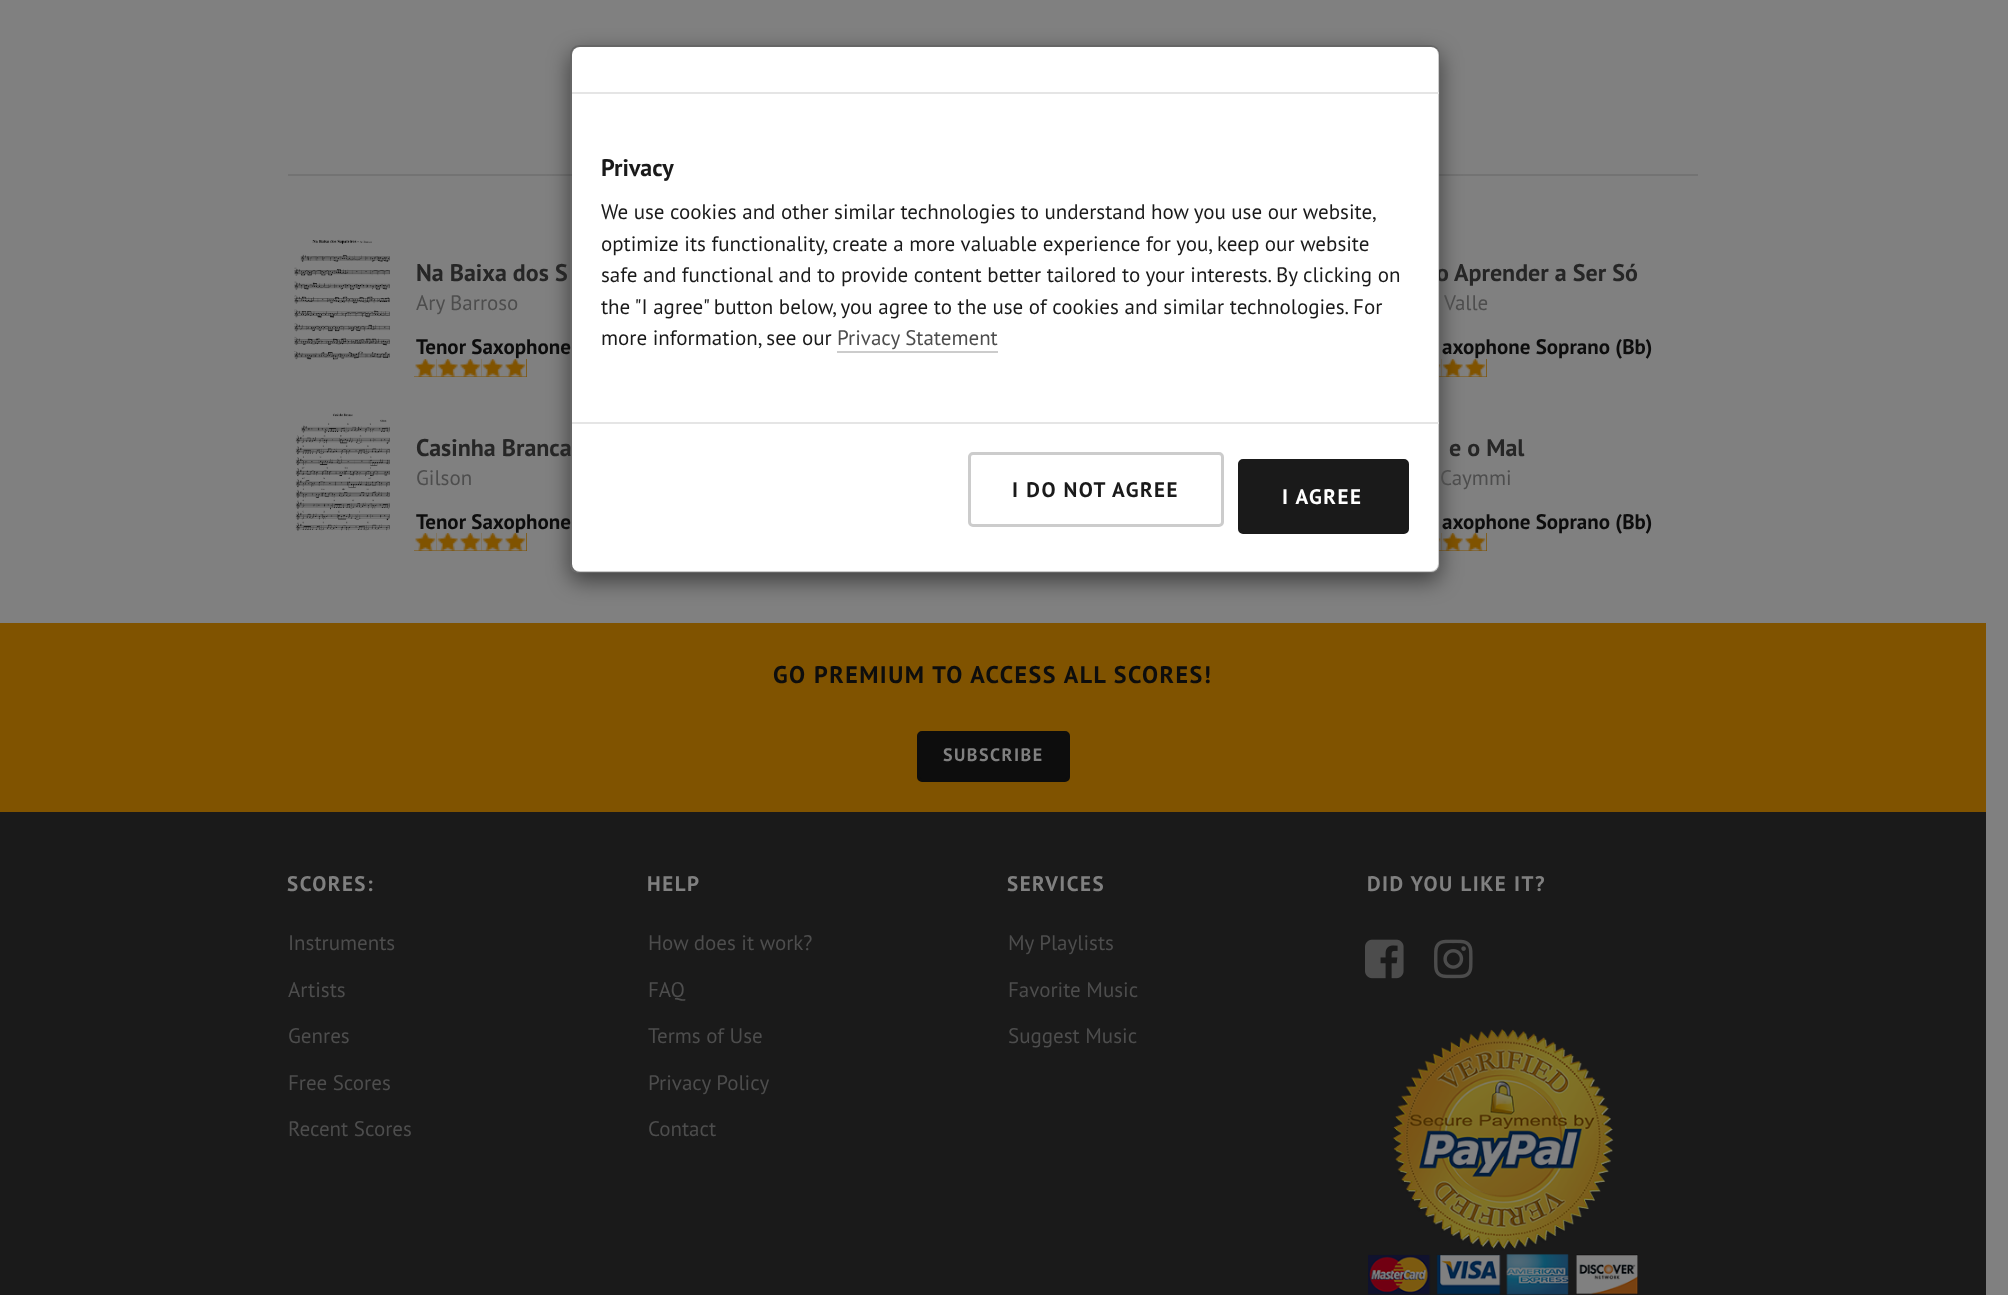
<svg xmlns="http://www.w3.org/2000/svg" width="2008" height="1295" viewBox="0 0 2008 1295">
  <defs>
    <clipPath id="clip1"><path d="M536 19H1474V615H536ZM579 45H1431C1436 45 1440 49 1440 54V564C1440 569 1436 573 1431 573H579C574 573 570 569 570 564V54C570 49 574 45 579 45Z" clip-rule="evenodd"/></clipPath>
    <filter id="blur1" x="-50%" y="-200%" width="200%" height="500%"><feGaussianBlur stdDeviation="11"/></filter>
  </defs>
  <rect width="100%" height="100%" fill="#808080"/>
  <rect x="288" y="174" width="1410" height="2" fill="#737373"/>
  <text x="1442" y="354" font-family="PT Sans" font-size="21" font-weight="bold" fill="#0d0d0d">axophone Soprano (Bb)</text>
  <rect x="1439" y="359" width="48" height="18" fill="#805300"/>
  <image x="1464" y="358" width="23" height="19" href="img6.png"/>
  <image x="1439" y="359" width="3" height="18" href="img7.png"/>
  <image x="1441" y="359" width="23" height="18" href="img4.png"/>
  <text x="1442" y="529" font-family="PT Sans" font-size="21" font-weight="bold" fill="#0d0d0d">axophone Soprano (Bb)</text>
  <rect x="1439" y="533" width="48" height="18" fill="#805300"/>
  <image x="1464" y="532" width="23" height="19" href="img10.png"/>
  <image x="1439" y="533" width="3" height="18" href="img7.png"/>
  <image x="1441" y="533" width="23" height="18" href="img4.png"/>
  <g clip-path="url(#clip1)">
    <rect x="570" y="53" width="870" height="528" rx="9" fill="#000000" fill-opacity="0.5" filter="url(#blur1)"/>
  </g>
  <text x="1436" y="281" font-family="PT Sans" font-size="24" font-weight="bold" fill="#262626">o Aprender a Ser Só</text>
  <rect x="572" y="47" width="867" height="525" rx="8" fill="#ffffff"/>
  <text x="416" y="456" font-family="PT Sans" font-size="24" font-weight="bold" fill="#262626">Casinha Branca</text>
  <rect x="571" y="46" width="868" height="526" rx="8" fill="none" stroke="#000000" stroke-opacity="0.2" stroke-width="2"/>
  <rect x="572" y="92" width="867" height="2" fill="#e5e5e5"/>
  <text x="601" y="176" font-family="PT Sans" font-size="24" font-weight="bold" fill="#1a1a1a">Privacy</text>
  <text x="601" y="219" word-spacing="-0.1" font-family="PT Sans" font-size="21" fill="#1a1a1a">We use cookies and other similar technologies to understand how you use our website,</text>
  <text x="601" y="251" font-family="PT Sans" font-size="21" fill="#1a1a1a">optimize its functionality, create a more valuable experience for you, keep our website</text>
  <text x="601" y="282" font-family="PT Sans" font-size="21" fill="#1a1a1a">safe and functional and to provide content better tailored to your interests. By clicking on</text>
  <text x="601" y="314" font-family="PT Sans" font-size="21" fill="#1a1a1a">the "I agree" button below, you agree to the use of cookies and similar technologies. For</text>
  <text x="601" y="345" font-family="PT Sans" font-size="21" fill="#1a1a1a">more information, see our</text>
  <text x="837" y="345" font-family="PT Sans" font-size="21" fill="#4d4d4d">Privacy Statement</text>
  <rect x="837" y="351" width="161" height="2" fill="#cccccc"/>
  <rect x="572" y="422" width="867" height="2" fill="#e5e5e5"/>
  <rect x="969.5" y="453.5" width="253" height="72" rx="3.5" fill="none" stroke="#cccccc" stroke-width="3"/>
  <text x="1012" y="497" font-family="PT Sans" font-size="21" font-weight="bold" letter-spacing="1.5" fill="#1a1a1a">I DO NOT AGREE</text>
  <rect x="1239.5" y="460.5" width="168" height="72" rx="3.5" fill="#1a1a1a" stroke="#1a1a1a" stroke-width="3"/>
  <text x="1282" y="504" font-family="PT Sans" font-size="21" font-weight="bold" letter-spacing="1.5" fill="#ffffff">I AGREE</text>
  <image x="294" y="239" width="96" height="121" href="img1.png"/>
  <text x="416" y="281" font-family="PT Sans" font-size="24" font-weight="bold" fill="#262626">Na Baixa dos S</text>
  <text x="416" y="310" font-family="PT Sans" font-size="21" fill="#4d4d4d">Ary Barroso</text>
  <text x="416" y="354" font-family="PT Sans" font-size="21" font-weight="bold" fill="#0d0d0d">Tenor Saxophone</text>
  <rect x="414" y="359" width="113" height="18" fill="#805300"/>
  <image x="504" y="358" width="23" height="19" href="img2.png"/>
  <image x="414" y="359" width="23" height="18" href="img3.png"/>
  <image x="436" y="359" width="23" height="18" href="img4.png"/>
  <image x="459" y="359" width="23" height="18" href="img3.png"/>
  <image x="481" y="359" width="23" height="18" href="img5.png"/>
  <text x="1444" y="310" font-family="PT Sans" font-size="21" fill="#4d4d4d">Valle</text>
  <image x="295" y="413" width="95" height="118" href="img8.png"/>
  <text x="416" y="485" font-family="PT Sans" font-size="21" fill="#4d4d4d">Gilson</text>
  <text x="416" y="529" font-family="PT Sans" font-size="21" font-weight="bold" fill="#0d0d0d">Tenor Saxophone</text>
  <rect x="414" y="533" width="113" height="18" fill="#805300"/>
  <image x="504" y="532" width="23" height="19" href="img9.png"/>
  <image x="414" y="533" width="23" height="18" href="img3.png"/>
  <image x="436" y="533" width="23" height="18" href="img4.png"/>
  <image x="459" y="533" width="23" height="18" href="img3.png"/>
  <image x="481" y="533" width="23" height="18" href="img5.png"/>
  <text x="1449" y="456" font-family="PT Sans" font-size="24" font-weight="bold" fill="#262626">e o Mal</text>
  <text x="1440" y="485" font-family="PT Sans" font-size="21" fill="#4d4d4d">Caymmi</text>
  <rect x="0" y="623" width="1986" height="189" fill="#805300"/>
  <text x="773" y="683" font-family="PT Sans" font-size="24" font-weight="bold" letter-spacing="1.5" fill="#0d0d0d">GO PREMIUM TO ACCESS ALL SCORES!</text>
  <rect x="918.5" y="732.5" width="150" height="48" rx="3.5" fill="#0d0d0d" stroke="#0d0d0d" stroke-width="3"/>
  <text x="943" y="761" font-family="PT Sans" font-size="18" font-weight="bold" letter-spacing="1.5" fill="#808080">SUBSCRIBE</text>
  <rect x="0" y="812" width="1986" height="483" fill="#1a1a1a"/>
  <text x="287" y="891" font-family="PT Sans" font-size="21" font-weight="bold" letter-spacing="1.5" fill="#808080">SCORES:</text>
  <text x="288" y="950" font-family="PT Sans" font-size="21" fill="#4d4d4d">Instruments</text>
  <text x="288" y="997" font-family="PT Sans" font-size="21" fill="#4d4d4d">Artists</text>
  <text x="288" y="1043" font-family="PT Sans" font-size="21" fill="#4d4d4d">Genres</text>
  <text x="288" y="1090" font-family="PT Sans" font-size="21" fill="#4d4d4d">Free Scores</text>
  <text x="288" y="1136" font-family="PT Sans" font-size="21" fill="#4d4d4d">Recent Scores</text>
  <text x="647" y="891" font-family="PT Sans" font-size="21" font-weight="bold" letter-spacing="1.5" fill="#808080">HELP</text>
  <text x="648" y="950" font-family="PT Sans" font-size="21" fill="#4d4d4d">How does it work?</text>
  <text x="648" y="997" font-family="PT Sans" font-size="21" fill="#4d4d4d">FAQ</text>
  <text x="648" y="1043" font-family="PT Sans" font-size="21" fill="#4d4d4d">Terms of Use</text>
  <text x="648" y="1090" font-family="PT Sans" font-size="21" fill="#4d4d4d">Privacy Policy</text>
  <text x="648" y="1136" font-family="PT Sans" font-size="21" fill="#4d4d4d">Contact</text>
  <text x="1007" y="891" font-family="PT Sans" font-size="21" font-weight="bold" letter-spacing="1.5" fill="#808080">SERVICES</text>
  <text x="1008" y="950" font-family="PT Sans" font-size="21" fill="#4d4d4d">My Playlists</text>
  <text x="1008" y="997" font-family="PT Sans" font-size="21" fill="#4d4d4d">Favorite Music</text>
  <text x="1008" y="1043" font-family="PT Sans" font-size="21" fill="#4d4d4d">Suggest Music</text>
  <text x="1367" y="891" font-family="PT Sans" font-size="21" font-weight="bold" letter-spacing="1.5" fill="#808080">DID YOU LIKE IT?</text>
  <image x="1365" y="939" width="39" height="40" href="img11.png"/>
  <image x="1434" y="939" width="39" height="40" href="img12.png"/>
  <image x="1368" y="1029" width="270" height="266" href="img13.png"/>
</svg>
